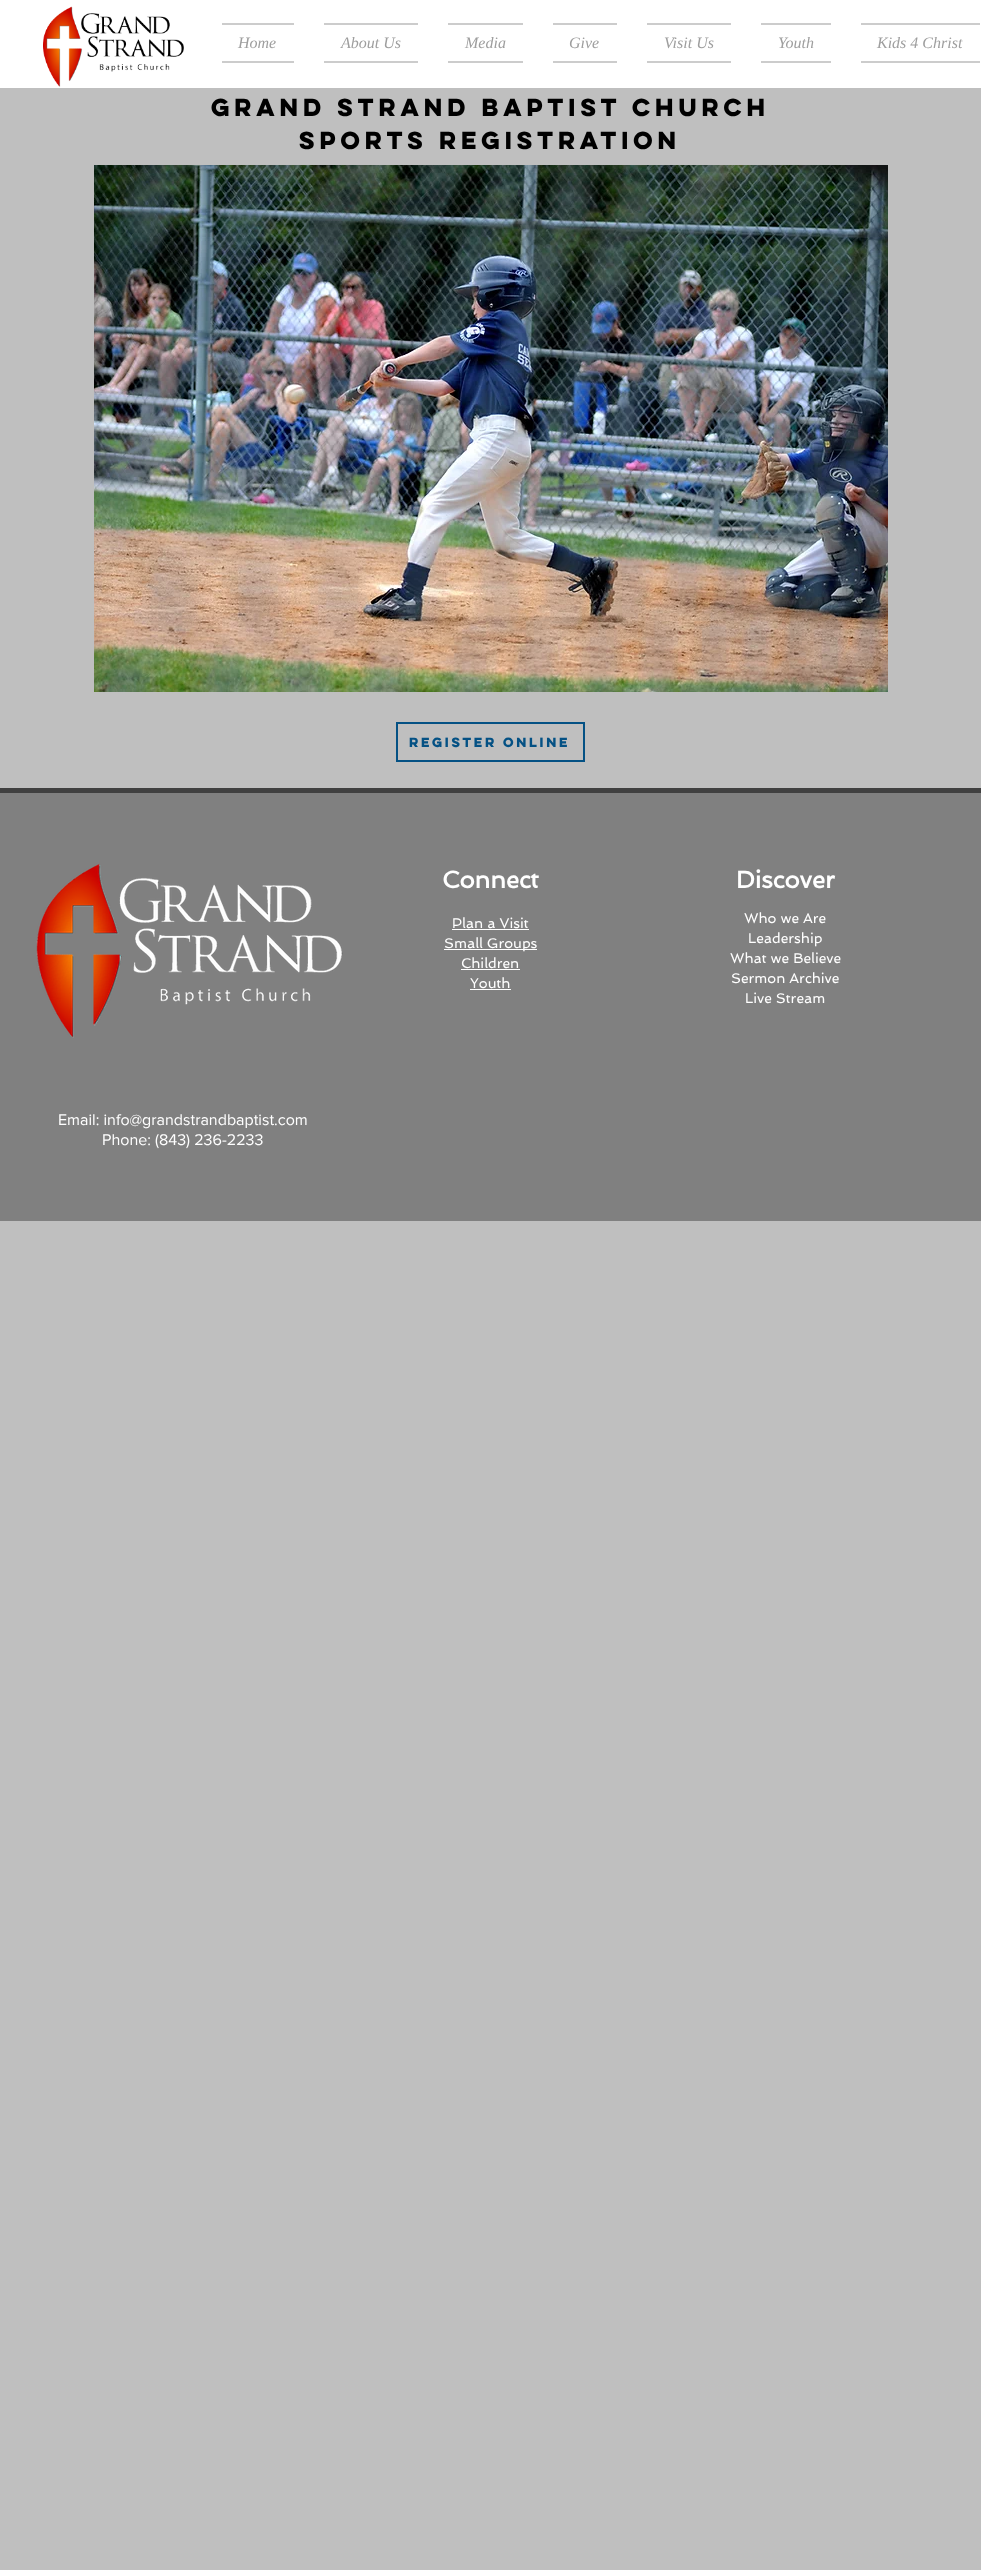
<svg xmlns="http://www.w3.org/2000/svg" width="981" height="2570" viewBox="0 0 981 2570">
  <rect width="100%" height="100%" fill="#bfbfbf"/>
  <rect x="0" y="0" width="981" height="88" fill="#ffffff"/>
  <image x="43" y="6" width="141" height="81" href="img1.png"/>
  <rect x="222" y="23" width="72" height="2" fill="#cccccc"/>
  <rect x="222" y="61" width="72" height="2" fill="#cccccc"/>
  <text x="238" y="48" font-family="Liberation Serif" font-size="16" font-style="italic" fill="#9e9e9e">Home</text>
  <rect x="324" y="23" width="94" height="2" fill="#cccccc"/>
  <rect x="324" y="61" width="94" height="2" fill="#cccccc"/>
  <text x="341" y="48" font-family="Liberation Serif" font-size="16" font-style="italic" fill="#9e9e9e">About Us</text>
  <rect x="448" y="23" width="75" height="2" fill="#cccccc"/>
  <rect x="448" y="61" width="75" height="2" fill="#cccccc"/>
  <text x="465" y="48" font-family="Liberation Serif" font-size="16" font-style="italic" fill="#9e9e9e">Media</text>
  <rect x="553" y="23" width="64" height="2" fill="#cccccc"/>
  <rect x="553" y="61" width="64" height="2" fill="#cccccc"/>
  <text x="569" y="48" font-family="Liberation Serif" font-size="16" font-style="italic" fill="#9e9e9e">Give</text>
  <rect x="647" y="23" width="84" height="2" fill="#cccccc"/>
  <rect x="647" y="61" width="84" height="2" fill="#cccccc"/>
  <text x="664" y="48" font-family="Liberation Serif" font-size="16" font-style="italic" fill="#9e9e9e">Visit Us</text>
  <rect x="761" y="23" width="70" height="2" fill="#cccccc"/>
  <rect x="761" y="61" width="70" height="2" fill="#cccccc"/>
  <text x="778" y="48" font-family="Liberation Serif" font-size="16" font-style="italic" fill="#9e9e9e">Youth</text>
  <rect x="861" y="23" width="119" height="2" fill="#cccccc"/>
  <rect x="861" y="61" width="119" height="2" fill="#cccccc"/>
  <text x="877" y="48" font-family="Liberation Serif" font-size="16" font-style="italic" fill="#9e9e9e">Kids 4 Christ</text>
  <text x="211" y="116" font-family="'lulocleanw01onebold'" font-size="22" font-weight="bold" fill="#000000">Grand Strand Baptist Church</text>
  <text x="299" y="149" font-family="'lulocleanw01onebold'" font-size="22" font-weight="bold" fill="#000000">Sports Registration</text>
  <image x="94" y="165" width="794" height="527" href="img2.png"/>
  <rect x="397" y="723" width="187" height="38" fill="none" stroke="#045184" stroke-width="2"/>
  <text x="409" y="747" font-family="'lulocleanw01onebold'" font-size="12" font-weight="bold" fill="#045184">Register Online</text>
  <rect x="0" y="793" width="981" height="428" fill="#808080"/>
  <rect x="0" y="788" width="981" height="5" fill="#404040"/>
  <image x="36" y="863" width="307" height="175" href="img3.png"/>
  <text x="442" y="888" font-family="Spinnaker" font-size="24" font-weight="bold" fill="#ffffff">Connect</text>
  <text x="736" y="888" font-family="Spinnaker" font-size="24" font-weight="bold" fill="#ffffff">Discover</text>
  <text x="452" y="928" font-family="Spinnaker" font-size="14" fill="#ffffff">Plan a Visit</text>
  <rect x="452" y="929" width="77" height="1" fill="#ffffff"/>
  <rect x="444" y="949" width="93" height="1" fill="#ffffff"/>
  <text x="444" y="948" font-family="Spinnaker" font-size="14" fill="#ffffff">Small Groups</text>
  <text x="461" y="968" font-family="Spinnaker" font-size="14" fill="#ffffff">Children</text>
  <rect x="461" y="969" width="59" height="1" fill="#ffffff"/>
  <text x="470" y="988" font-family="Spinnaker" font-size="14" fill="#ffffff">Youth</text>
  <rect x="470" y="989" width="41" height="1" fill="#ffffff"/>
  <text x="744" y="923" font-family="Spinnaker" font-size="14" fill="#ffffff">Who we Are</text>
  <text x="748" y="943" font-family="Spinnaker" font-size="14" fill="#ffffff">Leadership</text>
  <text x="730" y="963" font-family="Spinnaker" font-size="14" fill="#ffffff">What we Believe</text>
  <text x="731" y="983" font-family="Spinnaker" font-size="14" fill="#ffffff">Sermon Archive</text>
  <text x="745" y="1003" font-family="Spinnaker" font-size="14" fill="#ffffff">Live Stream</text>
  <text x="58" y="1125" font-family="'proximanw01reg'" font-size="16" fill="#ffffff">Email: info@grandstrandbaptist.com</text>
  <text x="102" y="1145" font-family="'proximanw01reg'" font-size="16" fill="#ffffff">Phone: (843) 236-2233</text>
</svg>
